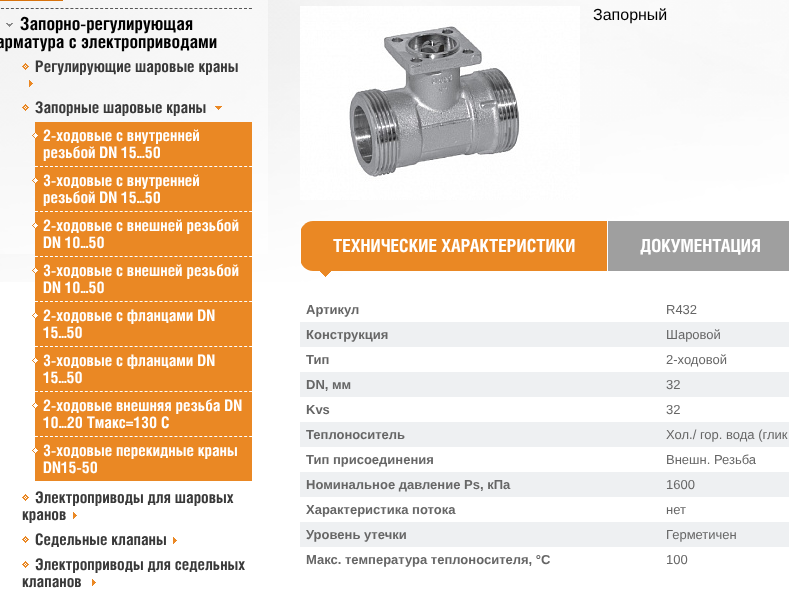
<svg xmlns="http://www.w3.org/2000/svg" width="789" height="594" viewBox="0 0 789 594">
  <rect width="100%" height="100%" fill="#ffffff"/>
  <image x="0" y="0" width="789" height="282" href="img1.png"/>
  <rect x="0" y="0" width="268" height="254" fill="#ffffff" fill-opacity="0.5"/>
  <rect x="0" y="0" width="63" height="1" fill="#d7720c"/>
  <path d="M-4 8.5H252" fill="none" stroke="#555555" stroke-dasharray="3 1.96"/>
  <image x="6" y="23" width="7" height="4" href="img2.png"/>
  <text x="20" y="30" font-family="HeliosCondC" font-size="18" font-weight="bold" fill="#000000">Запорно-регулирующая</text>
  <text x="-4" y="48" font-family="HeliosCondC" font-size="18" font-weight="bold" fill="#000000">арматура с электроприводами</text>
  <image x="22" y="63" width="7" height="7" href="img3.png"/>
  <text x="35" y="72" font-family="HeliosCondC" font-size="16" font-weight="bold" fill="#393939">Регулирующие шаровые краны</text>
  <image x="29" y="80" width="4" height="7" href="img4.png"/>
  <image x="22" y="104" width="7" height="7" href="img5.png"/>
  <text x="35" y="113" font-family="HeliosCondC" font-size="16" font-weight="bold" fill="#393939">Запорные шаровые краны</text>
  <image x="215" y="106" width="7" height="4" href="img6.png"/>
  <rect x="35" y="122" width="217" height="359" fill="#ea8824"/>
  <image x="32" y="133" width="6" height="5" href="img7.png"/>
  <text x="43" y="141" font-family="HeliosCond" font-size="16" font-weight="bold" fill="#ffffff">2-ходовые с внутренней</text>
  <text x="43" y="158" font-family="HeliosCond" font-size="16" font-weight="bold" fill="#ffffff">резьбой DN 15...50</text>
  <path d="M35 166.5H252" fill="none" stroke="#ffffff" stroke-dasharray="3 1.98"/>
  <image x="32" y="178" width="6" height="5" href="img8.png"/>
  <text x="43" y="186" font-family="HeliosCond" font-size="16" font-weight="bold" fill="#ffffff">3-ходовые с внутренней</text>
  <text x="43" y="203" font-family="HeliosCond" font-size="16" font-weight="bold" fill="#ffffff">резьбой DN 15...50</text>
  <path d="M35 211.5H252" fill="none" stroke="#ffffff" stroke-dasharray="3 1.98"/>
  <image x="32" y="223" width="6" height="5" href="img9.png"/>
  <text x="43" y="231" font-family="HeliosCond" font-size="16" font-weight="bold" fill="#ffffff">2-ходовые с внешней резьбой</text>
  <text x="43" y="248" font-family="HeliosCond" font-size="16" font-weight="bold" fill="#ffffff">DN 10...50</text>
  <path d="M35 256.5H252" fill="none" stroke="#ffffff" stroke-dasharray="3 1.98"/>
  <image x="32" y="268" width="6" height="5" href="img9.png"/>
  <text x="43" y="276" font-family="HeliosCond" font-size="16" font-weight="bold" fill="#ffffff">3-ходовые с внешней резьбой</text>
  <text x="43" y="293" font-family="HeliosCond" font-size="16" font-weight="bold" fill="#ffffff">DN 10...50</text>
  <path d="M35 301.5H252" fill="none" stroke="#ffffff" stroke-dasharray="3 1.98"/>
  <image x="32" y="313" width="6" height="5" href="img10.png"/>
  <text x="43" y="321" font-family="HeliosCond" font-size="16" font-weight="bold" fill="#ffffff">2-ходовые с фланцами DN</text>
  <text x="43" y="338" font-family="HeliosCond" font-size="16" font-weight="bold" fill="#ffffff">15...50</text>
  <path d="M35 346.5H252" fill="none" stroke="#ffffff" stroke-dasharray="3 1.98"/>
  <image x="32" y="358" width="6" height="5" href="img10.png"/>
  <text x="43" y="366" font-family="HeliosCond" font-size="16" font-weight="bold" fill="#ffffff">3-ходовые с фланцами DN</text>
  <text x="43" y="383" font-family="HeliosCond" font-size="16" font-weight="bold" fill="#ffffff">15...50</text>
  <path d="M35 391.5H252" fill="none" stroke="#ffffff" stroke-dasharray="3 1.98"/>
  <image x="32" y="403" width="6" height="5" href="img10.png"/>
  <text x="43" y="411" font-family="HeliosCond" font-size="16" font-weight="bold" fill="#ffffff">2-ходовые внешняя резьба DN</text>
  <text x="43" y="428" font-family="HeliosCond" font-size="16" font-weight="bold" fill="#ffffff">10...20 Tмакс=130 C</text>
  <path d="M35 436.5H252" fill="none" stroke="#ffffff" stroke-dasharray="3 1.98"/>
  <image x="32" y="448" width="6" height="5" href="img10.png"/>
  <text x="43" y="456" font-family="HeliosCond" font-size="16" font-weight="bold" fill="#ffffff">3-ходовые перекидные краны</text>
  <text x="43" y="473" font-family="HeliosCond" font-size="16" font-weight="bold" fill="#ffffff">DN15-50</text>
  <image x="22" y="494" width="7" height="7" href="img11.png"/>
  <text x="35" y="503" font-family="HeliosCondC" font-size="16" font-weight="bold" fill="#393939">Электроприводы для шаровых</text>
  <text x="22" y="520" font-family="HeliosCondC" font-size="16" font-weight="bold" fill="#393939">кранов</text>
  <image x="73" y="512" width="4" height="7" href="img12.png"/>
  <image x="22" y="536" width="7" height="7" href="img11.png"/>
  <text x="35" y="545" font-family="HeliosCondC" font-size="16" font-weight="bold" fill="#393939">Седельные клапаны</text>
  <image x="173" y="537" width="4" height="7" href="img12.png"/>
  <image x="22" y="561" width="7" height="7" href="img11.png"/>
  <text x="35" y="570" font-family="HeliosCondC" font-size="16" font-weight="bold" fill="#393939">Электроприводы для седельных</text>
  <text x="22" y="587" font-family="HeliosCondC" font-size="16" font-weight="bold" fill="#393939">клапанов</text>
  <image x="92" y="579" width="4" height="7" href="img12.png"/>
  <image x="300" y="6" width="280" height="194" href="img13.png"/>
  <text x="593" y="20" font-family="Liberation Sans" font-size="16" fill="#000000">Запорный</text>
  <path d="M313 221H607V271H313C306 271 300 265 300 258V234C300 227 306 221 313 221Z" fill="#ea8824"/>
  <rect x="300" y="228" width="1" height="37" fill="#ffffff"/>
  <text x="333" y="252" font-family="HeliosCondC" font-size="18" font-weight="bold" fill="#ffffff">ТЕХНИЧЕСКИЕ ХАРАКТЕРИСТИКИ</text>
  <image x="320" y="271" width="11" height="6" href="img14.png"/>
  <rect x="608" y="221" width="181" height="50" fill="#9f9f9f"/>
  <text x="640" y="252" font-family="HeliosCondC" font-size="18" font-weight="bold" fill="#ffffff">ДОКУМЕНТАЦИЯ</text>
  <text x="306" y="314" font-family="Liberation Sans" font-size="13" font-weight="bold" fill="#666666">Артикул</text>
  <text x="666" y="314" font-family="Liberation Sans" font-size="13" fill="#666666">R432</text>
  <rect x="300" y="322" width="489" height="25" fill="#eef0f2"/>
  <text x="306" y="339" font-family="Liberation Sans" font-size="13" font-weight="bold" fill="#666666">Конструкция</text>
  <text x="666" y="339" font-family="Liberation Sans" font-size="13" fill="#666666">Шаровой</text>
  <text x="306" y="364" font-family="Liberation Sans" font-size="13" font-weight="bold" fill="#666666">Тип</text>
  <text x="666" y="364" font-family="Liberation Sans" font-size="13" fill="#666666">2-ходовой</text>
  <rect x="300" y="372" width="489" height="25" fill="#eef0f2"/>
  <text x="306" y="389" font-family="Liberation Sans" font-size="13" font-weight="bold" fill="#666666">DN, мм</text>
  <text x="666" y="389" font-family="Liberation Sans" font-size="13" fill="#666666">32</text>
  <text x="306" y="414" font-family="Liberation Sans" font-size="13" font-weight="bold" fill="#666666">Kvs</text>
  <text x="666" y="414" font-family="Liberation Sans" font-size="13" fill="#666666">32</text>
  <rect x="300" y="422" width="489" height="25" fill="#eef0f2"/>
  <text x="306" y="439" font-family="Liberation Sans" font-size="13" font-weight="bold" fill="#666666">Теплоноситель</text>
  <text x="666" y="439" font-family="Liberation Sans" font-size="13" fill="#666666">Хол./ гор. вода (глик</text>
  <text x="306" y="464" font-family="Liberation Sans" font-size="13" font-weight="bold" fill="#666666">Тип присоединения</text>
  <text x="666" y="464" font-family="Liberation Sans" font-size="13" fill="#666666">Внешн. Резьба</text>
  <rect x="300" y="472" width="489" height="25" fill="#eef0f2"/>
  <text x="306" y="489" font-family="Liberation Sans" font-size="13" font-weight="bold" fill="#666666">Номинальное давление Ps, кПа</text>
  <text x="666" y="489" font-family="Liberation Sans" font-size="13" fill="#666666">1600</text>
  <text x="306" y="514" font-family="Liberation Sans" font-size="13" font-weight="bold" fill="#666666">Характеристика потока</text>
  <text x="666" y="514" font-family="Liberation Sans" font-size="13" fill="#666666">нет</text>
  <rect x="300" y="522" width="489" height="25" fill="#eef0f2"/>
  <text x="306" y="539" font-family="Liberation Sans" font-size="13" font-weight="bold" fill="#666666">Уровень утечки</text>
  <text x="666" y="539" font-family="Liberation Sans" font-size="13" fill="#666666">Герметичен</text>
  <text x="306" y="564" font-family="Liberation Sans" font-size="13" font-weight="bold" fill="#666666">Макс. температура теплоносителя, °С</text>
  <text x="666" y="564" font-family="Liberation Sans" font-size="13" fill="#666666">100</text>
</svg>
